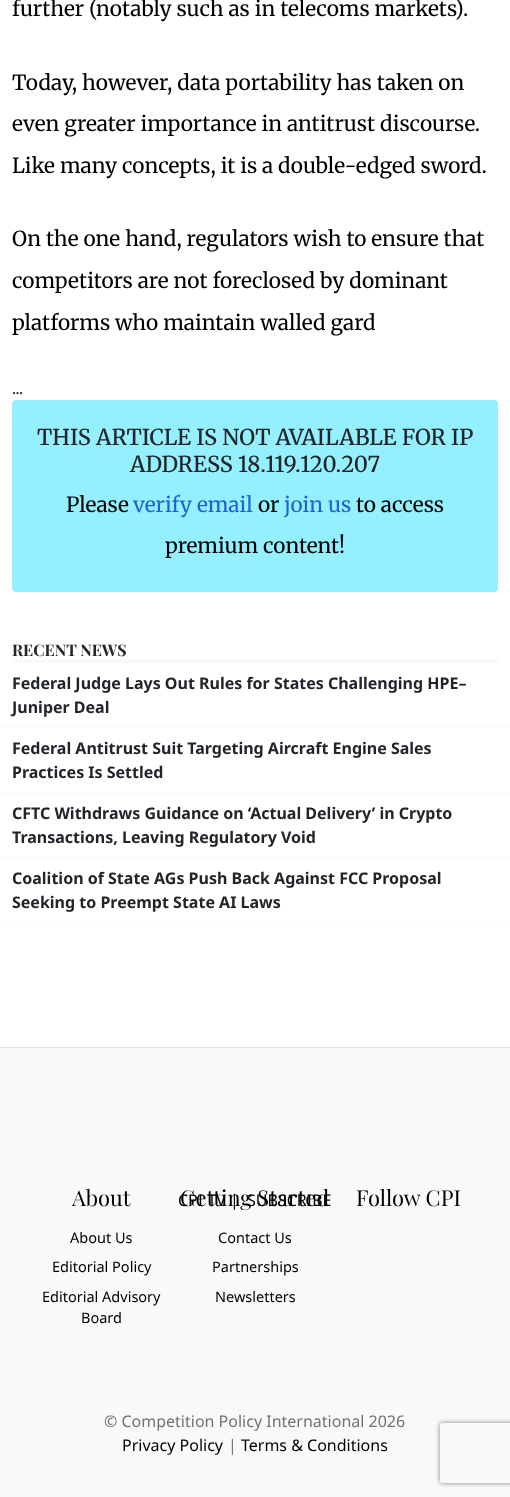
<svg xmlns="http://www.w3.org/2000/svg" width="510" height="1497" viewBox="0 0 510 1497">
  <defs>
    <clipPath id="clip1"><path d="M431 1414H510V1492H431ZM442 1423H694C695 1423 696 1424 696 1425V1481C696 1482 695 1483 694 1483H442C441 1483 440 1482 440 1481V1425C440 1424 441 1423 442 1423Z" clip-rule="evenodd"/></clipPath>
    <filter id="blur1" x="-50%" y="-200%" width="200%" height="500%"><feGaussianBlur stdDeviation="2.5"/></filter>
  </defs>
  <rect width="100%" height="100%" fill="#ffffff"/>
  <text x="12" y="16" font-family="Merriweather" font-size="20.8" fill="#000000">further (notably such as in telecoms markets).</text>
  <text x="12" y="90" font-family="Merriweather" font-size="20.8" fill="#000000">Today, however, data portability has taken on</text>
  <text x="12" y="131" font-family="Merriweather" font-size="20.8" fill="#000000">even greater importance in antitrust discourse.</text>
  <text x="12" y="173" font-family="Merriweather" font-size="20.8" fill="#000000">Like many concepts, it is a double-edged sword.</text>
  <text x="12" y="246" font-family="Merriweather" font-size="20.8" fill="#000000">On the one hand, regulators wish to ensure that</text>
  <text x="12" y="288" font-family="Merriweather" font-size="20.8" fill="#000000">competitors are not foreclosed by dominant</text>
  <text x="12" y="330" font-family="Merriweather" font-size="20.8" fill="#000000">platforms who maintain walled gard</text>
  <text x="12" y="394" font-family="Merriweather" font-size="16" fill="#212529">...</text>
  <rect x="12" y="400" width="486" height="192" rx="4" fill="#94efff"/>
  <text x="37" y="445" font-family="Merriweather" font-size="21.9" font-weight="500" fill="#212529">THIS ARTICLE IS NOT AVAILABLE FOR IP</text>
  <text x="130" y="472" font-family="Merriweather" font-size="21.9" font-weight="500" fill="#212529">ADDRESS 18.119.120.207</text>
  <text x="66" y="512" font-family="Merriweather" font-size="20.8" fill="#000000">Please</text>
  <text x="133" y="512" font-family="Merriweather" font-size="20.8" fill="#1e65c9">verify email</text>
  <text x="258" y="512" font-family="Merriweather" font-size="20.8" fill="#000000">or</text>
  <text x="284" y="512" font-family="Merriweather" font-size="20.8" fill="#1e65c9">join us</text>
  <text x="356" y="512" font-family="Merriweather" font-size="20.8" fill="#000000">to access</text>
  <text x="165" y="553" font-family="Merriweather" font-size="20.8" fill="#000000">premium content!</text>
  <rect x="12" y="659" width="486" height="4" fill="#f8f9fa"/>
  <text x="12" y="656" font-family="Playfair Display" font-size="16" font-weight="bold" fill="#212529">RECENT NEWS</text>
  <rect x="0" y="727" width="510" height="1" fill="#f8f9fa"/>
  <text x="12" y="689" font-family="Noto Sans" font-size="16" font-weight="bold" fill="#212529">Federal Judge Lays Out Rules for States Challenging HPE–</text>
  <text x="12" y="713" font-family="Noto Sans" font-size="16" font-weight="bold" fill="#212529">Juniper Deal</text>
  <rect x="0" y="792" width="510" height="1" fill="#f8f9fa"/>
  <text x="12" y="754" font-family="Noto Sans" font-size="16" font-weight="bold" fill="#212529">Federal Antitrust Suit Targeting Aircraft Engine Sales</text>
  <text x="12" y="778" font-family="Noto Sans" font-size="16" font-weight="bold" fill="#212529">Practices Is Settled</text>
  <rect x="0" y="857" width="510" height="1" fill="#f8f9fa"/>
  <text x="12" y="819" font-family="Noto Sans" font-size="16" font-weight="bold" fill="#212529">CFTC Withdraws Guidance on ‘Actual Delivery’ in Crypto</text>
  <text x="12" y="843" font-family="Noto Sans" font-size="16" font-weight="bold" fill="#212529">Transactions, Leaving Regulatory Void</text>
  <rect x="0" y="922" width="510" height="1" fill="#f8f9fa"/>
  <text x="12" y="884" font-family="Noto Sans" font-size="16" font-weight="bold" fill="#212529">Coalition of State AGs Push Back Against FCC Proposal</text>
  <text x="12" y="908" font-family="Noto Sans" font-size="16" font-weight="bold" fill="#212529">Seeking to Preempt State AI Laws</text>
  <rect x="0" y="1048" width="510" height="449" fill="#f9f9f9"/>
  <rect x="0" y="1047" width="510" height="1" fill="#e5e5e5"/>
  <text x="72" y="1206" font-family="Playfair Display" font-size="21.9" fill="#000000">About</text>
  <text x="70" y="1243" font-family="Noto Sans" font-size="14.5" fill="#000000">About Us</text>
  <text x="52" y="1272" font-family="Noto Sans" font-size="14.5" fill="#000000">Editorial Policy</text>
  <text x="42" y="1302" font-family="Noto Sans" font-size="14.5" fill="#000000">Editorial Advisory</text>
  <text x="81" y="1323" font-family="Noto Sans" font-size="14.5" fill="#000000">Board</text>
  <text x="178" y="1206" font-family="Noto Sans" font-size="16" fill="#000000">CPI TV |</text>
  <text x="247" y="1206" font-family="Noto Sans" font-size="16" fill="#000000">SUBSCRIBE</text>
  <text x="180" y="1206" font-family="Playfair Display" font-size="21.9" fill="#000000">Getting Started</text>
  <text x="218" y="1243" font-family="Noto Sans" font-size="14.5" fill="#000000">Contact Us</text>
  <text x="212" y="1272" font-family="Noto Sans" font-size="14.5" fill="#000000">Partnerships</text>
  <text x="215" y="1302" font-family="Noto Sans" font-size="14.5" fill="#000000">Newsletters</text>
  <text x="356" y="1206" font-family="Playfair Display" font-size="21.9" fill="#000000">Follow CPI</text>
  <text x="104" y="1427" font-family="Noto Sans" font-size="16" fill="#727272">© Competition Policy International 2026</text>
  <text x="122" y="1451" font-family="Noto Sans" font-size="16" fill="#000000">Privacy Policy</text>
  <text x="228" y="1451" font-family="Noto Sans" font-size="16" fill="#727272">|</text>
  <text x="241" y="1451" font-family="Noto Sans" font-size="16" fill="#000000">Terms &amp; Conditions</text>
  <g clip-path="url(#clip1)">
    <rect x="440" y="1423" width="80" height="60" rx="2" fill="#808080" filter="url(#blur1)"/>
  </g>
</svg>
